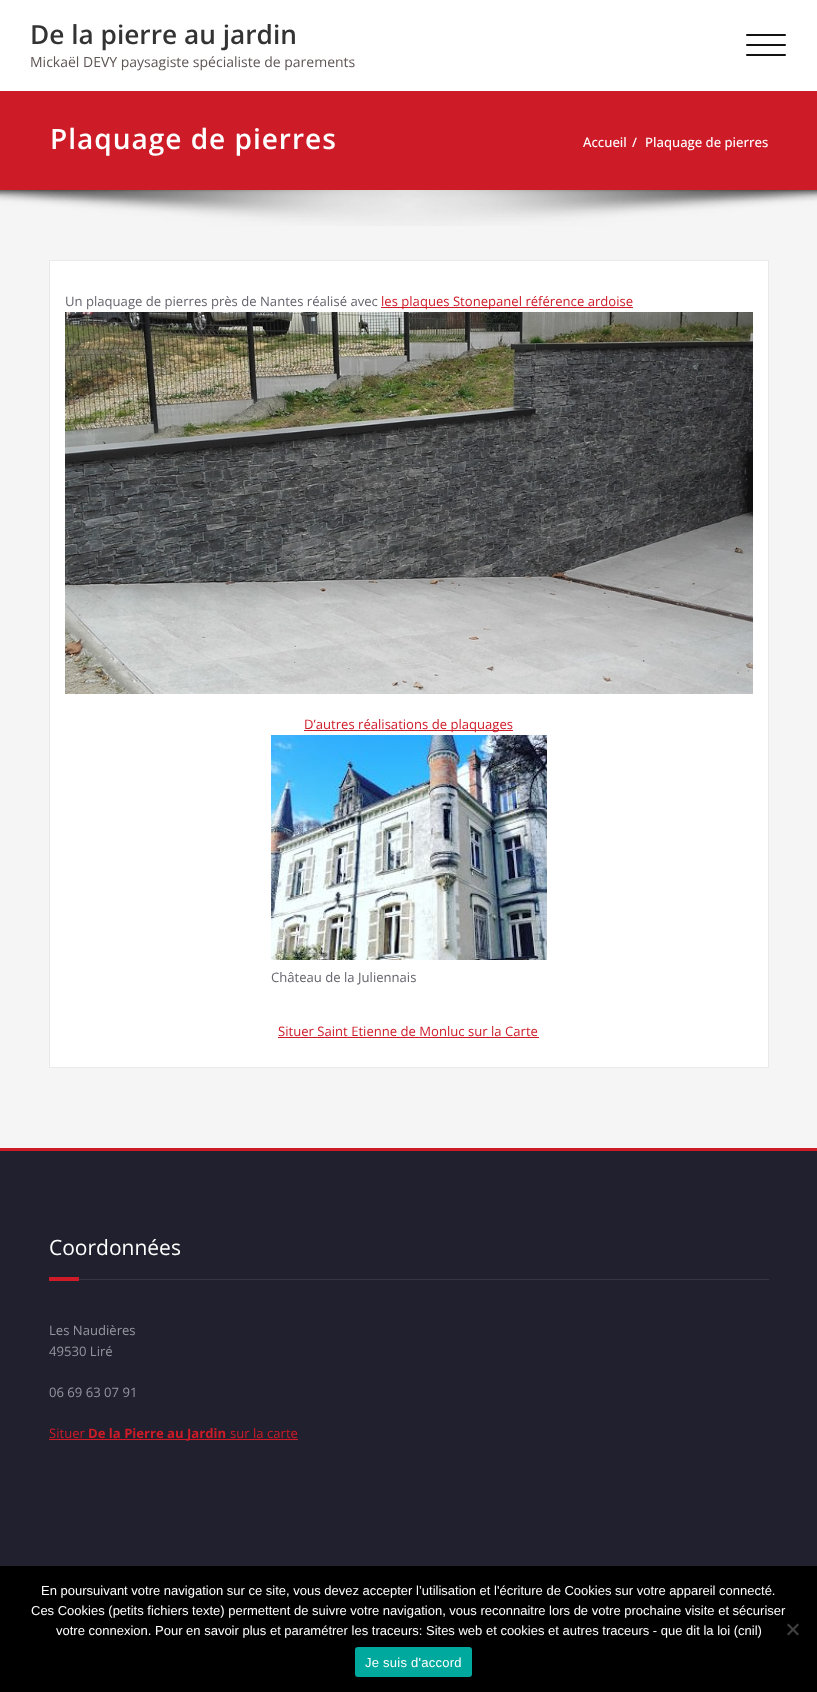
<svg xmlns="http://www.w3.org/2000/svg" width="817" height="1692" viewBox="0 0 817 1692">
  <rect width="100%" height="100%" fill="#f5f5f5"/>
  <rect x="0" y="0" width="817" height="91" fill="#ffffff"/>
  <text x="30" y="44" font-family="Open Sans" font-size="26.25" font-weight="600" fill="#333333">De la pierre au jardin</text>
  <text x="30" y="67" font-family="Open Sans" font-size="14" fill="#5f5555">Mickaël DEVY paysagiste spécialiste de parements</text>
  <rect x="746" y="34" width="40" height="2" rx="1" fill="#121213"/>
  <rect x="746" y="44" width="40" height="2" rx="1" fill="#121213"/>
  <rect x="746" y="54" width="40" height="2" rx="1" fill="#121213"/>
  <rect x="0" y="91" width="817" height="99" fill="#ce1b28"/>
  <text x="50" y="149" font-family="Open Sans" font-size="28" font-weight="600" letter-spacing="1" fill="#ffffff">Plaquage de pierres</text>
  <text x="583" y="147" font-family="Open Sans" font-size="13.1" font-weight="500" fill="#ffffff">Accueil</text>
  <text x="632" y="147" font-family="Open Sans" font-size="13.1" font-weight="500" fill="#ffffff">/</text>
  <text x="645" y="147" font-family="Open Sans" font-size="13.1" font-weight="500" fill="#ffffff">Plaquage de pierres</text>
  <image x="0" y="190" width="817" height="36" href="img1.png"/>
  <rect x="49.5" y="260.5" width="719" height="807" fill="#ffffff" stroke="#e9e9e9"/>
  <text x="65" y="306" font-family="Open Sans" font-size="13.1" fill="#64646d">Un plaquage de pierres près de Nantes réalisé avec</text>
  <rect x="381" y="307" width="252" height="1" fill="#ce1b28"/>
  <text x="381" y="306" font-family="Open Sans" font-size="13.1" fill="#ce1b28">les plaques Stonepanel référence ardoise</text>
  <image x="65" y="312" width="688" height="382" href="img2.png"/>
  <rect x="304" y="730" width="209" height="1" fill="#ce1b28"/>
  <text x="304" y="729" font-family="Open Sans" font-size="13.1" fill="#ce1b28">D’autres réalisations de plaquages</text>
  <image x="271" y="735" width="276" height="225" href="img3.png"/>
  <text x="271" y="982" font-family="Open Sans" font-size="13.1" fill="#64646d">Château de la Juliennais</text>
  <text x="278" y="1036" font-family="Open Sans" font-size="13.1" fill="#ce1b28">Situer Saint Etienne de Monluc sur la Carte</text>
  <rect x="278" y="1037" width="261" height="1" fill="#ce1b28"/>
  <rect x="0" y="1151" width="817" height="415" fill="#21202e"/>
  <rect x="0" y="1148" width="817" height="3" fill="#ce1b28"/>
  <rect x="79" y="1279" width="690" height="1" fill="#363544"/>
  <text x="49" y="1255" font-family="Open Sans" font-size="21" fill="#ffffff">Coordonnées</text>
  <rect x="49" y="1277" width="30" height="4" fill="#ce1b28"/>
  <text x="49" y="1335" font-family="Open Sans" font-size="13.1" fill="#9595a0">Les Naudières</text>
  <text x="49" y="1356" font-family="Open Sans" font-size="13.1" fill="#9595a0">49530 Liré</text>
  <text x="49" y="1397" font-family="Open Sans" font-size="13.1" fill="#9595a0">06 69 63 07 91</text>
  <text x="49" y="1438" font-family="Open Sans" font-size="13.1" fill="#ce1b28">Situer</text>
  <rect x="49" y="1439" width="249" height="1" fill="#ce1b28"/>
  <text x="88" y="1438" font-family="Open Sans" font-size="13.1" font-weight="bold" fill="#ce1b28">De la Pierre au Jardin</text>
  <text x="230" y="1438" font-family="Open Sans" font-size="13.1" fill="#ce1b28">sur la carte</text>
  <rect x="0" y="1566" width="817" height="126" fill="#000000"/>
  <text x="41" y="1595" font-family="Liberation Sans" font-size="13" fill="#ffffff">En poursuivant votre navigation sur ce site, vous devez accepter l’utilisation et l'écriture de Cookies sur votre appareil connecté.</text>
  <text x="31" y="1615" font-family="Liberation Sans" font-size="13" fill="#ffffff">Ces Cookies (petits fichiers texte) permettent de suivre votre navigation, vous reconnaitre lors de votre prochaine visite et sécuriser</text>
  <text x="56" y="1635" font-family="Liberation Sans" font-size="13" fill="#ffffff">votre connexion. Pour en savoir plus et paramétrer les traceurs: Sites web et cookies et autres traceurs - que dit la loi (cnil)</text>
  <path d="M797.5 1623.5L799 1625L788.5 1635.5L787 1634Z" fill="#404040"/>
  <path d="M787 1625L788.5 1623.5L799 1634L797.5 1635.5Z" fill="#404040"/>
  <rect x="355" y="1647" width="117" height="30" rx="3" fill="#00a99d"/>
  <text x="365" y="1667" font-family="Liberation Sans" font-size="13" letter-spacing="0.25" fill="#ffffff">Je suis d'accord</text>
</svg>
